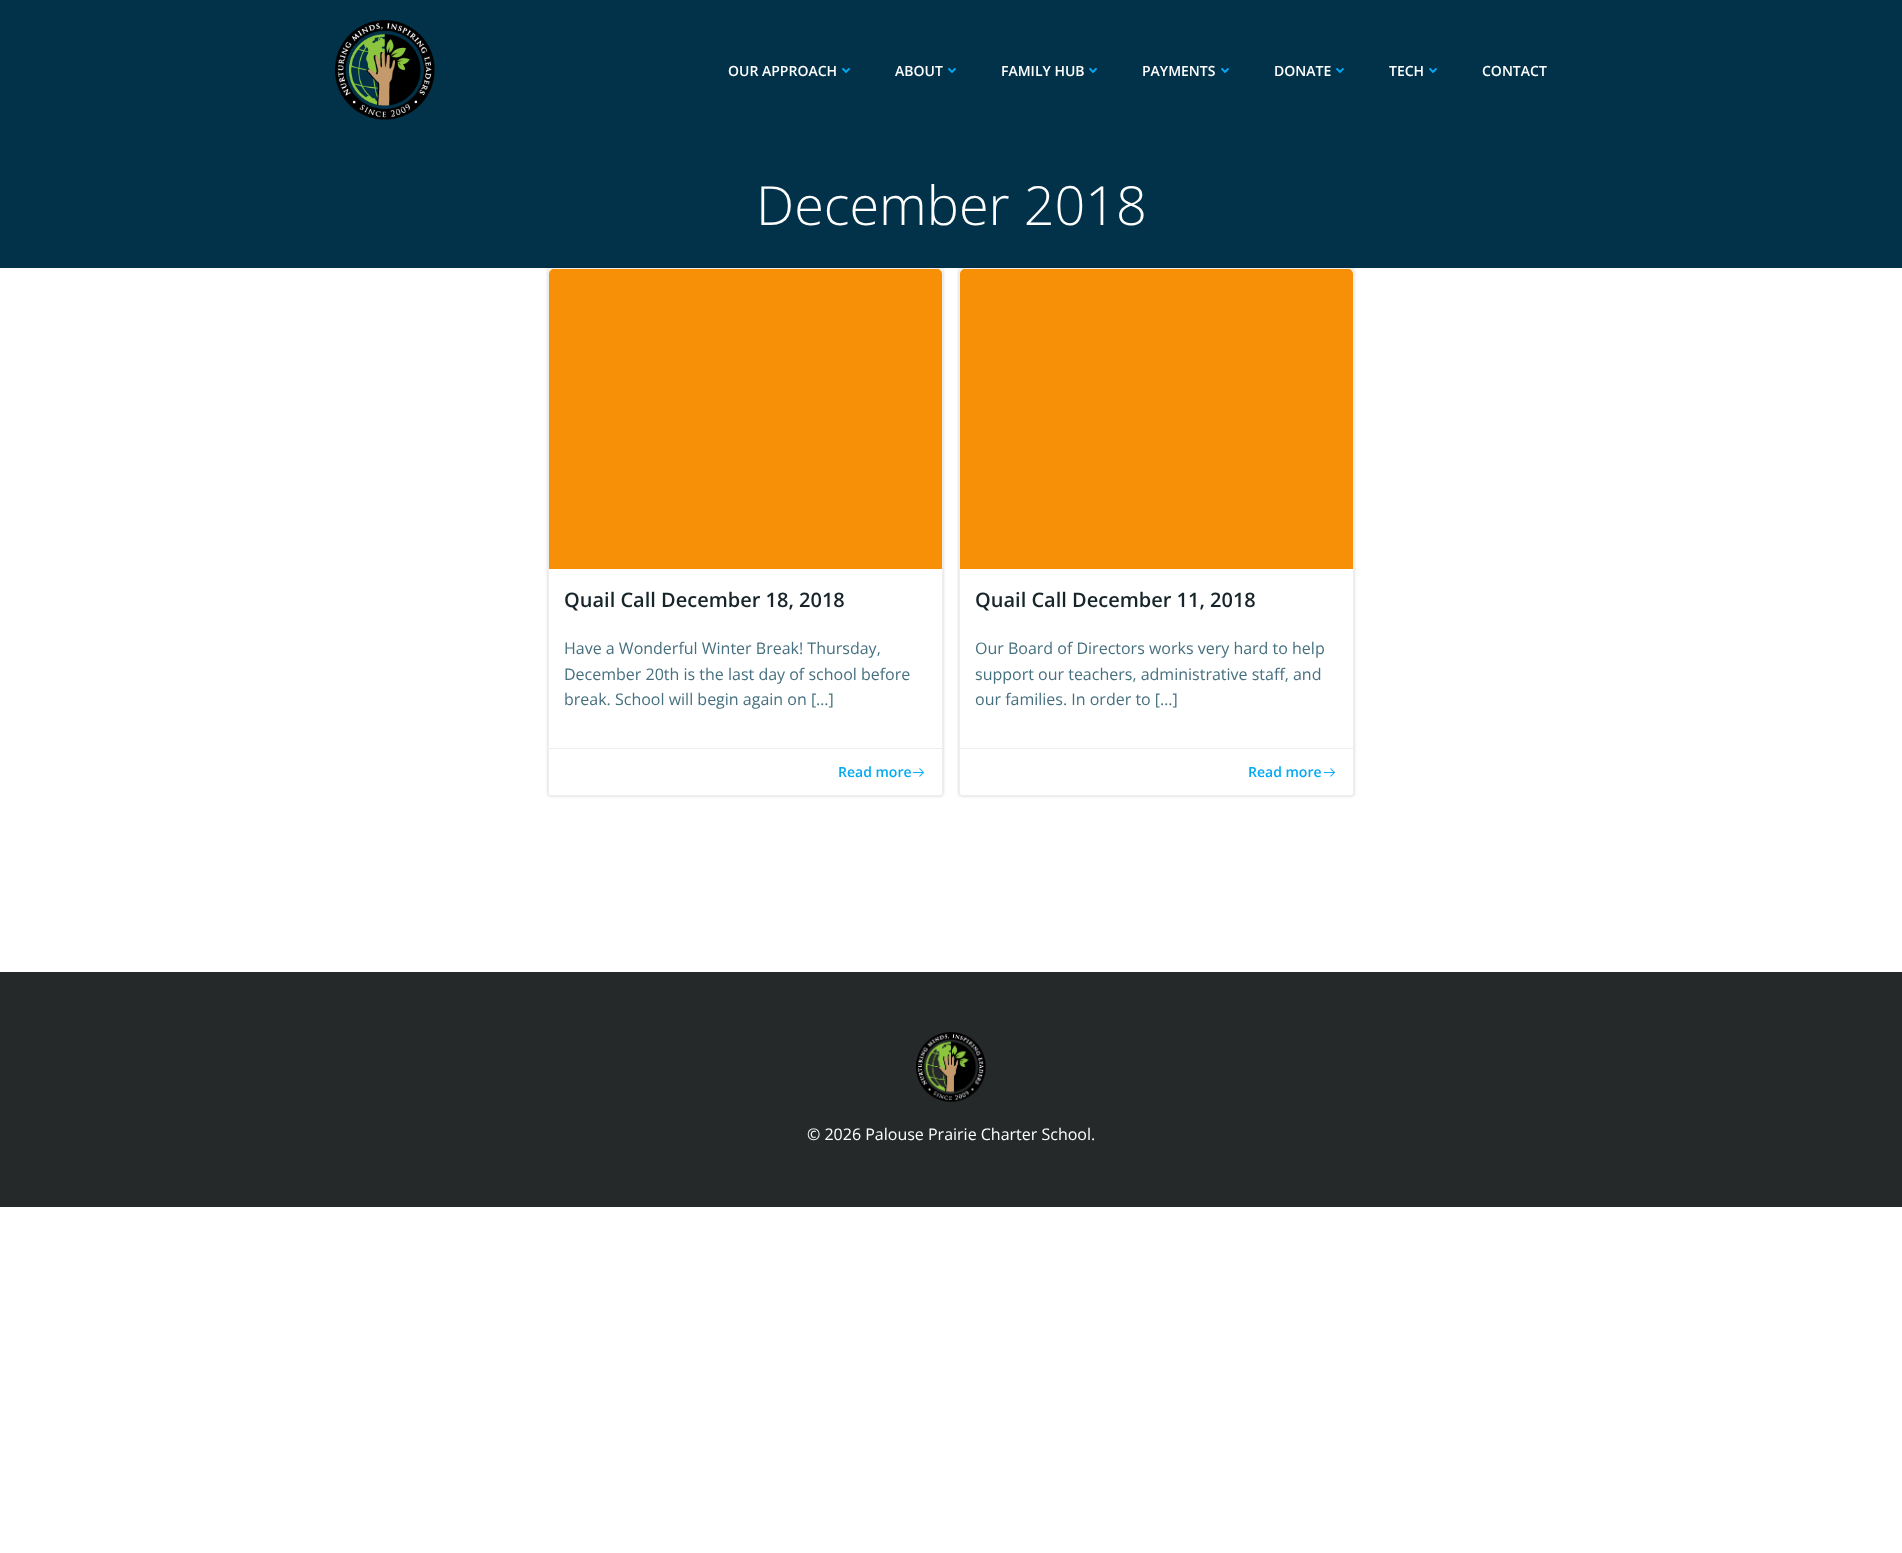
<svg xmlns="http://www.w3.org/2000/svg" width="1902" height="1553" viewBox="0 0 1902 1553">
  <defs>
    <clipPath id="clip1"><path d="M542 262H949V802H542ZM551 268H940C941.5 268 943 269.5 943 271V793C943 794.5 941.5 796 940 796H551C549.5 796 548 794.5 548 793V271C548 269.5 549.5 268 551 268Z" clip-rule="evenodd"/></clipPath>
    <filter id="blur1" x="-50%" y="-200%" width="200%" height="500%"><feGaussianBlur stdDeviation="1.5"/></filter>
    <clipPath id="clip2"><path d="M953 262H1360V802H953ZM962 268H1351C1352.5 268 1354 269.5 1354 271V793C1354 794.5 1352.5 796 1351 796H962C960.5 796 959 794.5 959 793V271C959 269.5 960.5 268 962 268Z" clip-rule="evenodd"/></clipPath>
  </defs>
  <rect width="100%" height="100%" fill="#ffffff"/>
  <rect x="0" y="0" width="1902" height="268" fill="#013249"/>
  <image x="335" y="20" width="100" height="100" href="img1.png"/>
  <text x="728" y="76" font-family="Open Sans" font-size="14" font-weight="600" fill="#ffffff">OUR APPROACH</text>
  <image x="842" y="68" width="8" height="5" href="img2.png"/>
  <text x="895" y="76" font-family="Open Sans" font-size="14" font-weight="600" fill="#ffffff">ABOUT</text>
  <image x="948" y="68" width="8" height="5" href="img2.png"/>
  <text x="1001" y="76" font-family="Open Sans" font-size="14" font-weight="600" fill="#ffffff">FAMILY HUB</text>
  <image x="1089" y="68" width="8" height="5" href="img2.png"/>
  <text x="1142" y="76" font-family="Open Sans" font-size="14" font-weight="600" fill="#ffffff">PAYMENTS</text>
  <image x="1221" y="68" width="8" height="5" href="img2.png"/>
  <text x="1274" y="76" font-family="Open Sans" font-size="14" font-weight="600" fill="#ffffff">DONATE</text>
  <image x="1336" y="68" width="8" height="5" href="img2.png"/>
  <text x="1389" y="76" font-family="Open Sans" font-size="14" font-weight="600" fill="#ffffff">TECH</text>
  <image x="1429" y="68" width="8" height="5" href="img2.png"/>
  <text x="1482" y="76" font-family="Open Sans" font-size="14" font-weight="600" fill="#ffffff">CONTACT</text>
  <text x="756" y="225" font-family="Open Sans" font-size="54" font-weight="300" fill="#ffffff">December 2018</text>
  <g clip-path="url(#clip1)">
    <rect x="548" y="268" width="395" height="528" rx="3" fill="#000000" fill-opacity="0.2" filter="url(#blur1)"/>
  </g>
  <rect x="548.5" y="268.5" width="394" height="527" rx="2.5" fill="none" stroke="#eeeeee"/>
  <path d="M554 269H937C940 269 942 271 942 274V569H549V274C549 271 551 269 554 269Z" fill="#f79007"/>
  <text x="564" y="607" font-family="Open Sans" font-size="20" font-weight="600" fill="#17252a">Quail Call December 18, 2018</text>
  <text x="564" y="654" font-family="Open Sans" font-size="16" fill="#46707f">Have a Wonderful Winter Break! Thursday,</text>
  <text x="564" y="680" font-family="Open Sans" font-size="16" fill="#46707f">December 20th is the last day of school before</text>
  <text x="564" y="705" font-family="Open Sans" font-size="16" fill="#46707f">break. School will begin again on […]</text>
  <rect x="549" y="748" width="393" height="1" fill="#eeeeee"/>
  <text x="838" y="777" font-family="Open Sans" font-size="14" font-weight="600" fill="#03a9f4">Read more</text>
  <image x="912" y="768" width="12" height="9" href="img3.png"/>
  <g clip-path="url(#clip2)">
    <rect x="959" y="268" width="395" height="528" rx="3" fill="#000000" fill-opacity="0.2" filter="url(#blur1)"/>
  </g>
  <rect x="959.5" y="268.5" width="394" height="527" rx="2.5" fill="none" stroke="#eeeeee"/>
  <path d="M965 269H1348C1351 269 1353 271 1353 274V569H960V274C960 271 962 269 965 269Z" fill="#f79007"/>
  <text x="975" y="607" font-family="Open Sans" font-size="20" font-weight="600" fill="#17252a">Quail Call December 11, 2018</text>
  <text x="975" y="654" font-family="Open Sans" font-size="16" fill="#46707f">Our Board of Directors works very hard to help</text>
  <text x="975" y="680" font-family="Open Sans" font-size="16" fill="#46707f">support our teachers, administrative staff, and</text>
  <text x="975" y="705" font-family="Open Sans" font-size="16" fill="#46707f">our families. In order to […]</text>
  <rect x="960" y="748" width="393" height="1" fill="#eeeeee"/>
  <text x="1248" y="777" font-family="Open Sans" font-size="14" font-weight="600" fill="#03a9f4">Read more</text>
  <image x="1323" y="768" width="12" height="9" href="img3.png"/>
  <rect x="0" y="972" width="1902" height="235" fill="#25292a"/>
  <image x="916" y="1032" width="70" height="70" href="img4.png"/>
  <text x="807" y="1140" font-family="Open Sans" font-size="16" fill="#ffffff">© 2026 Palouse Prairie Charter School.</text>
</svg>
